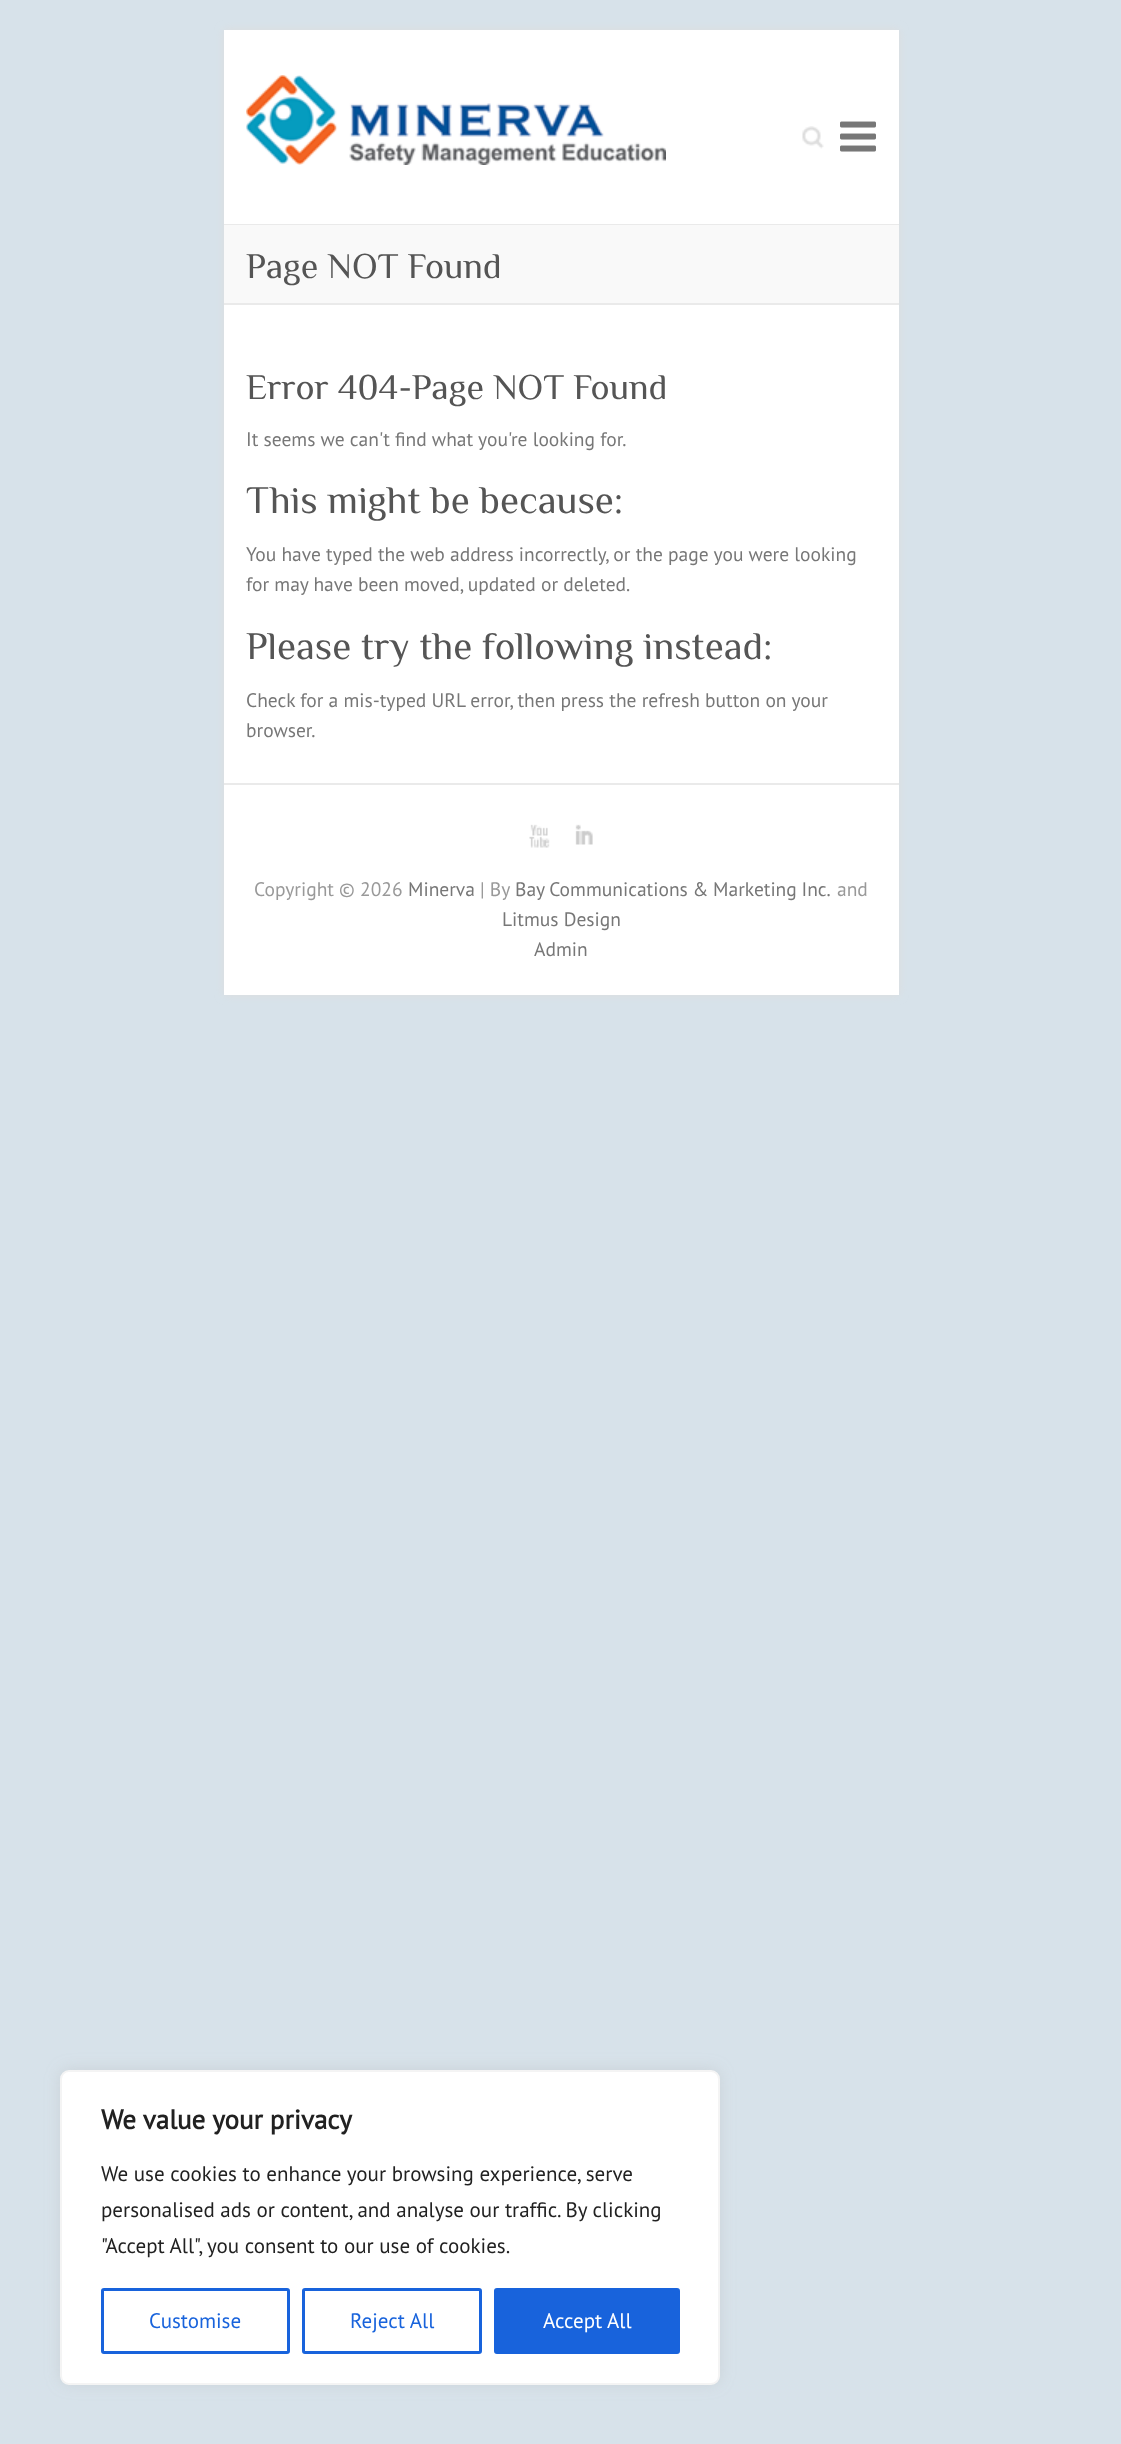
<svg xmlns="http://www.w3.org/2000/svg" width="1121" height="2444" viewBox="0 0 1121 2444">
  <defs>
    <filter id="blur1" x="-50%" y="-200%" width="200%" height="500%"><feGaussianBlur stdDeviation="4"/></filter>
    <filter id="blur2" x="-50%" y="-200%" width="200%" height="500%"><feGaussianBlur stdDeviation="7.5"/></filter>
  </defs>
  <rect width="100%" height="100%" fill="#d7e2ea"/>
  <rect x="224" y="30" width="675" height="965" fill="#dddddd" filter="url(#blur1)"/>
  <rect x="224" y="30" width="675" height="965" fill="#ffffff"/>
  <image x="246" y="75" width="420" height="90" href="img1.png"/>
  <image x="802" y="126" width="22" height="23" href="img2.png"/>
  <image x="840" y="121" width="36" height="31" href="img3.png"/>
  <rect x="224" y="224" width="675" height="1" fill="#eaeaea"/>
  <rect x="224" y="225" width="675" height="78" fill="#f9f9f9"/>
  <rect x="224" y="303" width="675" height="2" fill="#eaeaea"/>
  <text x="246" y="278" font-family="Philosopher" font-size="36" fill="#555555">Page NOT Found</text>
  <text x="246" y="399" font-family="Philosopher" font-size="36" fill="#555555">Error 404-Page NOT Found</text>
  <text x="246" y="446" font-family="PT Sans" font-size="19.5" fill="#777777">It seems we can't find what you're looking for.</text>
  <text x="246" y="513" font-family="Philosopher" font-size="39" fill="#555555">This might be because:</text>
  <text x="246" y="561" font-family="PT Sans" font-size="19.5" fill="#777777">You have typed the web address incorrectly, or the page you were looking</text>
  <text x="246" y="591" font-family="PT Sans" font-size="19.5" fill="#777777">for may have been moved, updated or deleted.</text>
  <text x="246" y="659" font-family="Philosopher" font-size="39" fill="#555555">Please try the following instead:</text>
  <text x="246" y="707" font-family="PT Sans" font-size="19.5" fill="#777777">Check for a mis-typed URL error, then press the refresh button on your</text>
  <text x="246" y="737" font-family="PT Sans" font-size="19.5" fill="#777777">browser.</text>
  <rect x="224" y="783" width="675" height="2" fill="#eaeaea"/>
  <image x="529" y="824" width="21" height="24" href="img4.png"/>
  <image x="575" y="824" width="18" height="21" href="img5.png"/>
  <text x="254" y="896" font-family="PT Sans" font-size="19.5" fill="#999999">Copyright © 2026</text>
  <text x="408" y="896" font-family="PT Sans" font-size="19.5" fill="#777777">Minerva</text>
  <text x="480" y="896" font-family="PT Sans" font-size="19.5" fill="#999999">| By</text>
  <text x="515" y="896" word-spacing="-0.5" font-family="PT Sans" font-size="19.5" fill="#777777">Bay Communications &amp; Marketing Inc.</text>
  <text x="837" y="896" font-family="PT Sans" font-size="19.5" fill="#999999">and</text>
  <text x="502" y="926" font-family="PT Sans" font-size="19.5" fill="#777777">Litmus Design</text>
  <text x="534" y="956" font-family="PT Sans" font-size="19.5" fill="#777777">Admin</text>
  <rect x="60" y="2069" width="660" height="315" rx="9" fill="#acabab" fill-opacity="0.3" filter="url(#blur2)"/>
  <rect x="61" y="2071" width="658" height="313" rx="8" fill="#ffffff" stroke="#f4f4f4" stroke-width="2"/>
  <text x="101" y="2129" font-family="PT Sans" font-size="27" font-weight="bold" fill="#212121">We value your privacy</text>
  <text x="101" y="2181" font-family="PT Sans" font-size="21" fill="#212121">We use cookies to enhance your browsing experience, serve</text>
  <text x="101" y="2217" font-family="PT Sans" font-size="21" fill="#212121">personalised ads or content, and analyse our traffic. By clicking</text>
  <text x="101" y="2253" font-family="PT Sans" font-size="21" fill="#212121">"Accept All", you consent to our use of cookies.</text>
  <rect x="102.5" y="2289.5" width="186" height="63" rx="1.5" fill="none" stroke="#1863dc" stroke-width="3"/>
  <text x="149" y="2328" font-family="PT Sans" font-size="21" fill="#1863dc">Customise</text>
  <rect x="303.5" y="2289.5" width="177" height="63" rx="1.5" fill="none" stroke="#1863dc" stroke-width="3"/>
  <text x="350" y="2328" font-family="PT Sans" font-size="21" fill="#1863dc">Reject All</text>
  <rect x="495.5" y="2289.5" width="183" height="63" rx="1.5" fill="#1863dc" stroke="#1863dc" stroke-width="3"/>
  <text x="543" y="2328" font-family="PT Sans" font-size="21" fill="#ffffff">Accept All</text>
</svg>
